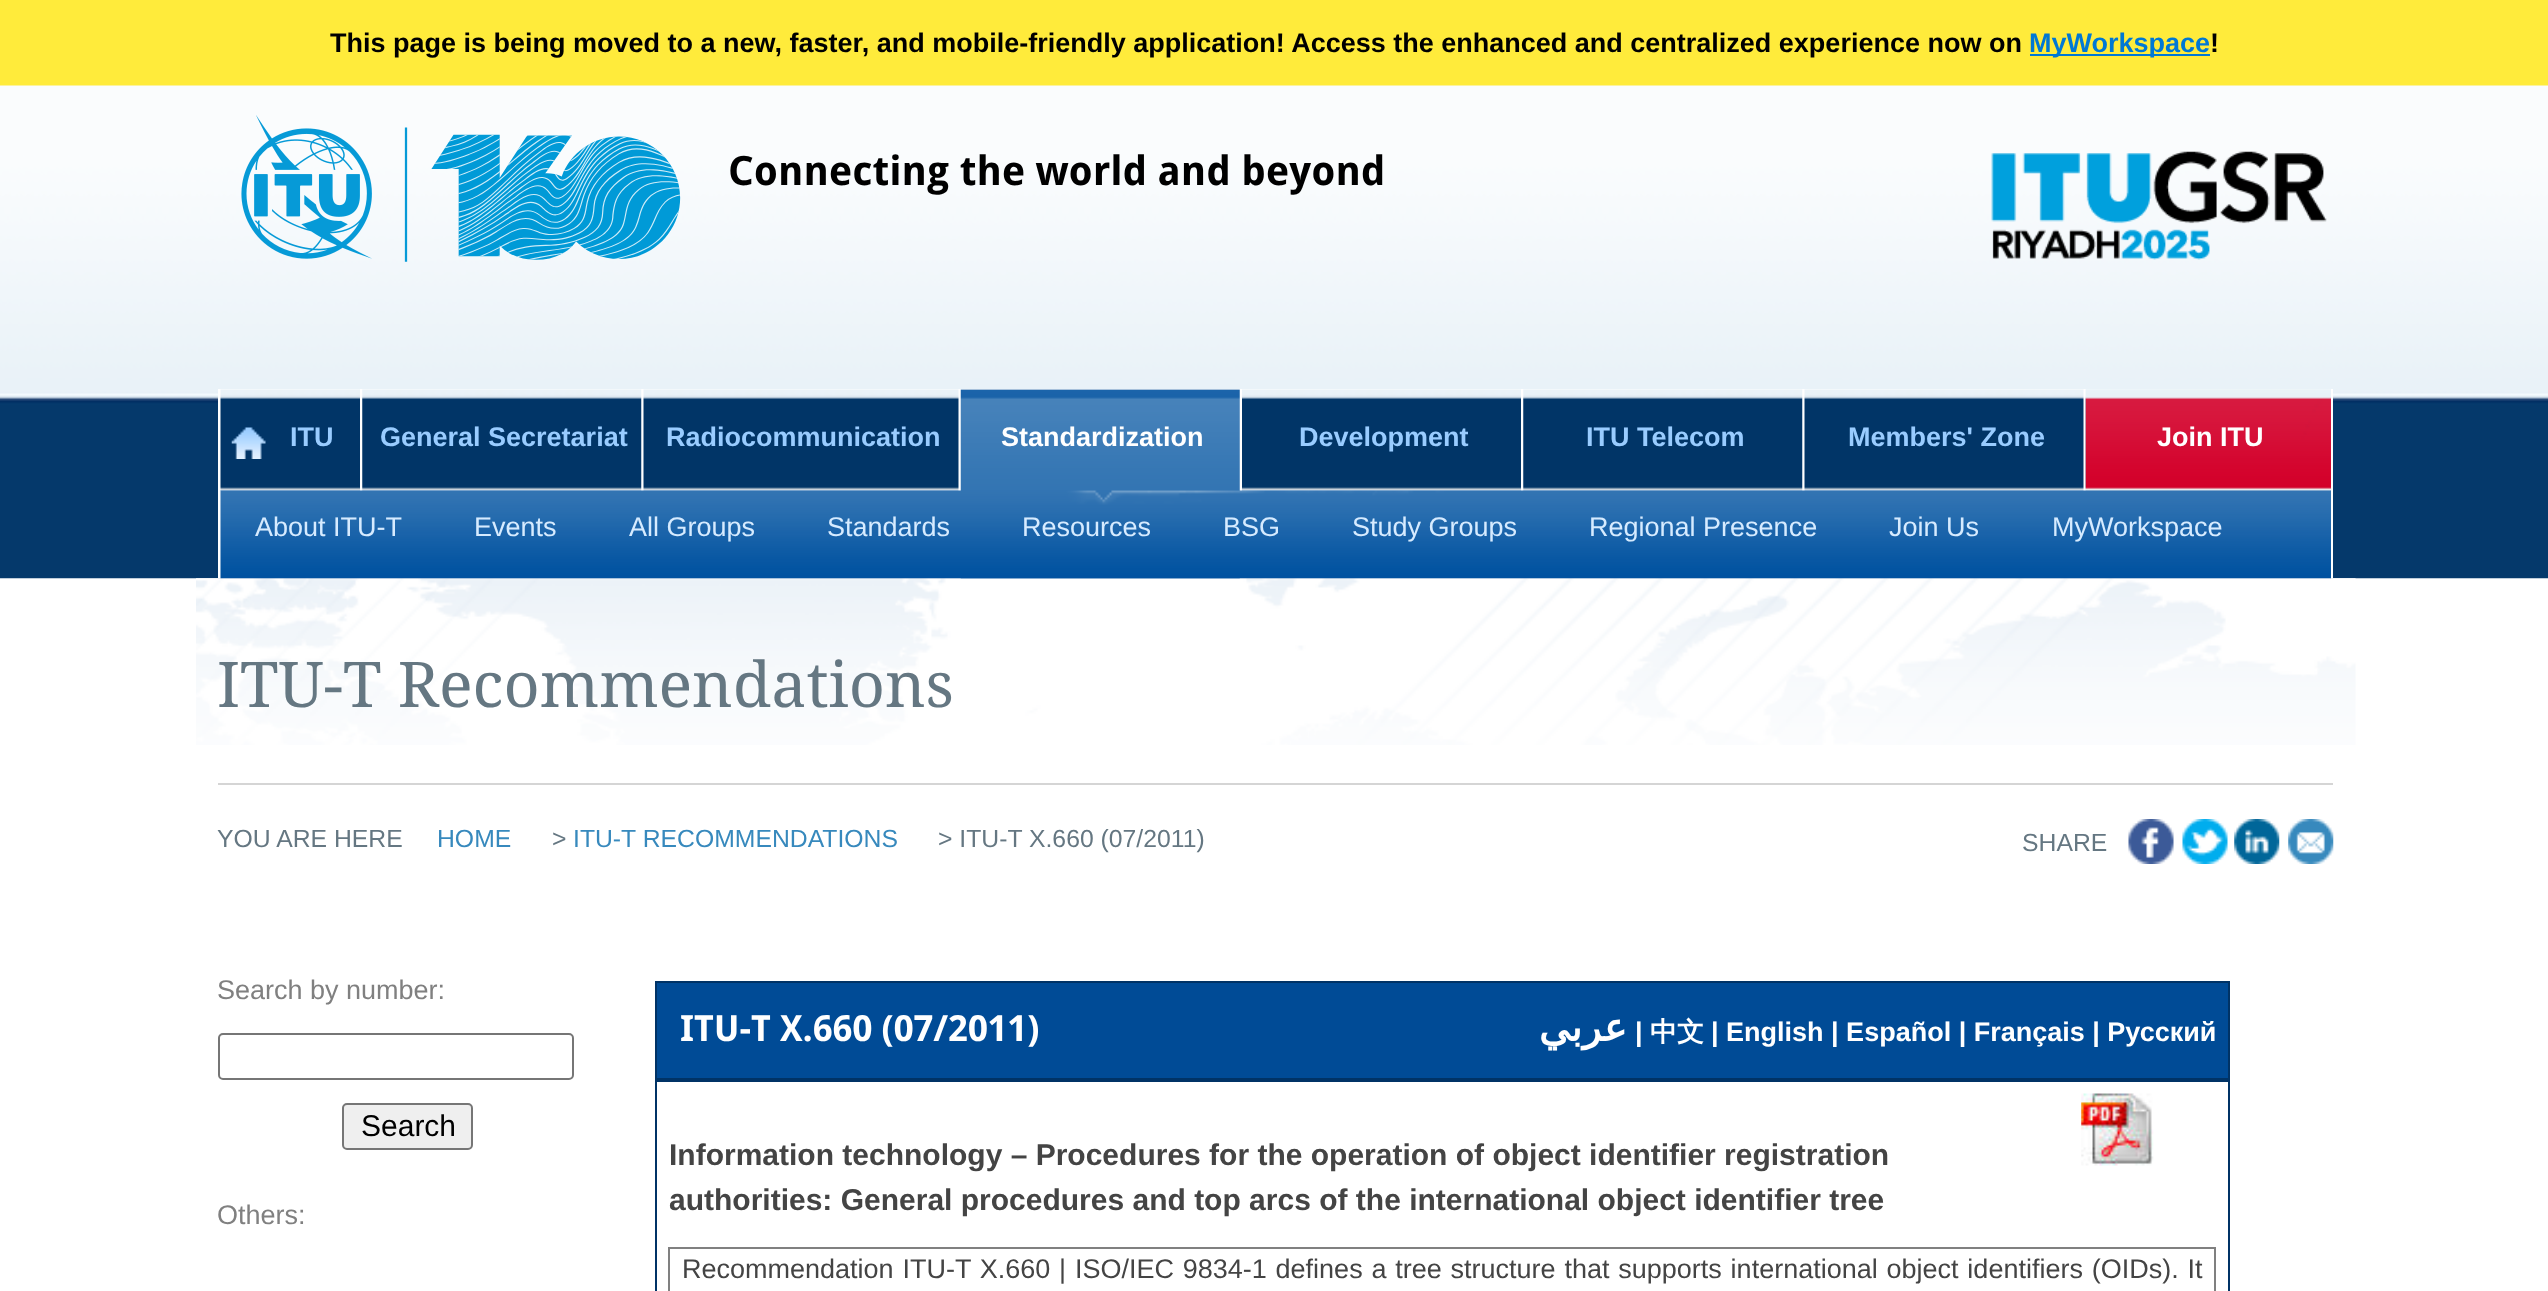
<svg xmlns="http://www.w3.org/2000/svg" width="2548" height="1291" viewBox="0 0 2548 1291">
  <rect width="100%" height="100%" fill="#ffffff"/>
  <rect x="0" y="0" width="2548" height="86" fill="#ffeb3b"/>
  <text x="330" y="52" font-family="Liberation Sans" font-size="27" font-weight="bold" fill="#000000">This page is being moved to a new, faster, and mobile-friendly application! Access the enhanced and centralized experience now on</text>
  <rect x="2030" y="54" width="180" height="2" fill="#0078d4"/>
  <text x="2029" y="52" font-family="Liberation Sans" font-size="27" font-weight="bold" fill="#0078d4">MyWorkspace</text>
  <text x="2210" y="52" font-family="Liberation Sans" font-size="27" font-weight="bold" fill="#000000">!</text>
  <image x="0" y="85" width="2548" height="494" href="img1.png"/>
  <image x="241" y="115" width="131" height="144" href="img2.png"/>
  <image x="404" y="127" width="277" height="135" href="img3.png"/>
  <text x="728" y="185" font-family="Droid Sans" font-size="40.5" font-weight="bold" fill="#000000">Connecting the world and beyond</text>
  <image x="1991" y="151" width="336" height="109" href="img4.png"/>
  <rect x="218" y="389" width="2115" height="189" fill="#ffffff"/>
  <image x="196" y="578" width="2160" height="167" href="img15.png"/>
  <image x="960" y="389" width="280" height="190" href="img5.png"/>
  <text x="1001" y="446" font-family="Liberation Sans" font-size="27" font-weight="bold" fill="#ffffff">Standardization</text>
  <image x="220" y="389" width="140" height="102" href="img7.png"/>
  <image x="362" y="389" width="280" height="102" href="img9.png"/>
  <image x="643" y="389" width="316" height="102" href="img10.png"/>
  <image x="1242" y="389" width="279" height="102" href="img11.png"/>
  <image x="1523" y="389" width="280" height="102" href="img9.png"/>
  <image x="1804" y="389" width="280" height="102" href="img12.png"/>
  <image x="2085" y="389" width="246" height="102" href="img13.png"/>
  <image x="2085" y="389" width="246" height="102" href="img14.png"/>
  <image x="220" y="490" width="2111" height="89" href="img6.png"/>
  <text x="255" y="536" font-family="Liberation Sans" font-size="27" fill="#d6ebff">About ITU-T</text>
  <text x="474" y="536" font-family="Liberation Sans" font-size="27" fill="#d6ebff">Events</text>
  <text x="629" y="536" font-family="Liberation Sans" font-size="27" fill="#d6ebff">All Groups</text>
  <text x="827" y="536" font-family="Liberation Sans" font-size="27" fill="#d6ebff">Standards</text>
  <text x="1022" y="536" font-family="Liberation Sans" font-size="27" fill="#d6ebff">Resources</text>
  <text x="1223" y="536" font-family="Liberation Sans" font-size="27" fill="#d6ebff">BSG</text>
  <text x="1352" y="536" font-family="Liberation Sans" font-size="27" fill="#d6ebff">Study Groups</text>
  <text x="1589" y="536" font-family="Liberation Sans" font-size="27" fill="#d6ebff">Regional Presence</text>
  <text x="1889" y="536" font-family="Liberation Sans" font-size="27" fill="#d6ebff">Join Us</text>
  <text x="2052" y="536" font-family="Liberation Sans" font-size="27" fill="#d6ebff">MyWorkspace</text>
  <image x="231" y="427" width="35" height="32" href="img8.png"/>
  <text x="290" y="446" font-family="Liberation Sans" font-size="27" font-weight="bold" fill="#99ccff">ITU</text>
  <text x="380" y="446" font-family="Liberation Sans" font-size="27" font-weight="bold" fill="#99ccff">General Secretariat</text>
  <text x="666" y="446" font-family="Liberation Sans" font-size="27" font-weight="bold" fill="#99ccff">Radiocommunication</text>
  <text x="1299" y="446" font-family="Liberation Sans" font-size="27" font-weight="bold" fill="#99ccff">Development</text>
  <text x="1586" y="446" font-family="Liberation Sans" font-size="27" font-weight="bold" fill="#99ccff">ITU Telecom</text>
  <text x="1848" y="446" font-family="Liberation Sans" font-size="27" font-weight="bold" fill="#99ccff">Members' Zone</text>
  <text x="2157" y="446" font-family="Liberation Sans" font-size="27" font-weight="bold" fill="#ffffff">Join ITU</text>
  <text x="217" y="707" font-family="Droid Serif" font-size="62.9" fill="#657782">ITU-T Recommendations</text>
  <rect x="218" y="783" width="2115" height="2" fill="#d5d5d5"/>
  <text x="217" y="847" font-family="Liberation Sans" font-size="24.75" fill="#657782">YOU ARE HERE</text>
  <text x="437" y="847" font-family="Liberation Sans" font-size="24.75" fill="#3789bd">HOME</text>
  <text x="552" y="847" font-family="Liberation Sans" font-size="24.75" fill="#657782">&gt;</text>
  <text x="573" y="847" font-family="Liberation Sans" font-size="24.75" fill="#3789bd">ITU-T RECOMMENDATIONS</text>
  <text x="938" y="847" font-family="Liberation Sans" font-size="24.75" fill="#657782">&gt; ITU-T X.660 (07/2011)</text>
  <text x="2022" y="851" font-family="Liberation Sans" font-size="24.75" fill="#657782">SHARE</text>
  <image x="2128" y="819" width="46" height="45" href="img16.png"/>
  <image x="2182" y="819" width="46" height="45" href="img17.png"/>
  <image x="2234" y="819" width="46" height="45" href="img18.png"/>
  <image x="2288" y="819" width="46" height="45" href="img19.png"/>
  <text x="217" y="999" font-family="Liberation Sans" font-size="27" fill="#808080">Search by number:</text>
  <rect x="219" y="1034" width="354" height="45" rx="4" fill="none" stroke="#767676" stroke-width="2"/>
  <rect x="343" y="1104" width="129" height="45" rx="4" fill="#efefef" stroke="#767676" stroke-width="2"/>
  <text x="361" y="1136" font-family="Liberation Sans" font-size="30" fill="#000000">Search</text>
  <text x="217" y="1224" font-family="Liberation Sans" font-size="27" fill="#808080">Others:</text>
  <rect x="656" y="982" width="1573" height="97" fill="none" stroke="#003366" stroke-width="2"/>
  <rect x="657" y="983" width="1571" height="95" fill="#004b96"/>
  <text x="680" y="1041" font-family="Droid Sans" font-size="36" font-weight="bold" fill="#ffffff">ITU-T X.660 (07/2011)</text>
  <text x="1627" y="1041" font-family="DejaVu Sans" font-size="39" font-weight="bold" direction="rtl" fill="#ffffff">عربي</text>
  <text x="1635" y="1041" font-family="Liberation Sans" font-size="27" font-weight="bold" fill="#ffffff">|</text>
  <text x="1650" y="1041" font-family="WenQuanYi Zen Hei" font-size="27" font-weight="bold" fill="#ffffff">中文</text>
  <text x="1711" y="1041" font-family="Liberation Sans" font-size="27" font-weight="bold" fill="#ffffff">| English | Español | Français | Русский</text>
  <rect x="656" y="1081" width="1573" height="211" fill="none" stroke="#003366" stroke-width="2"/>
  <image x="2081" y="1093" width="73" height="73" href="img20.png"/>
  <text x="669" y="1165" font-family="Liberation Sans" font-size="30" font-weight="bold" fill="#444444">Information technology – Procedures for the operation of object identifier registration</text>
  <text x="669" y="1210" font-family="Liberation Sans" font-size="30" font-weight="bold" fill="#444444">authorities: General procedures and top arcs of the international object identifier tree</text>
  <rect x="669" y="1248" width="1546" height="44" fill="none" stroke="#808080" stroke-width="2"/>
  <text x="682" y="1278" word-spacing="1.3" font-family="Liberation Sans" font-size="27" fill="#444444">Recommendation ITU-T X.660 | ISO/IEC 9834-1 defines a tree structure that supports international object identifiers (OIDs). It</text>
</svg>
